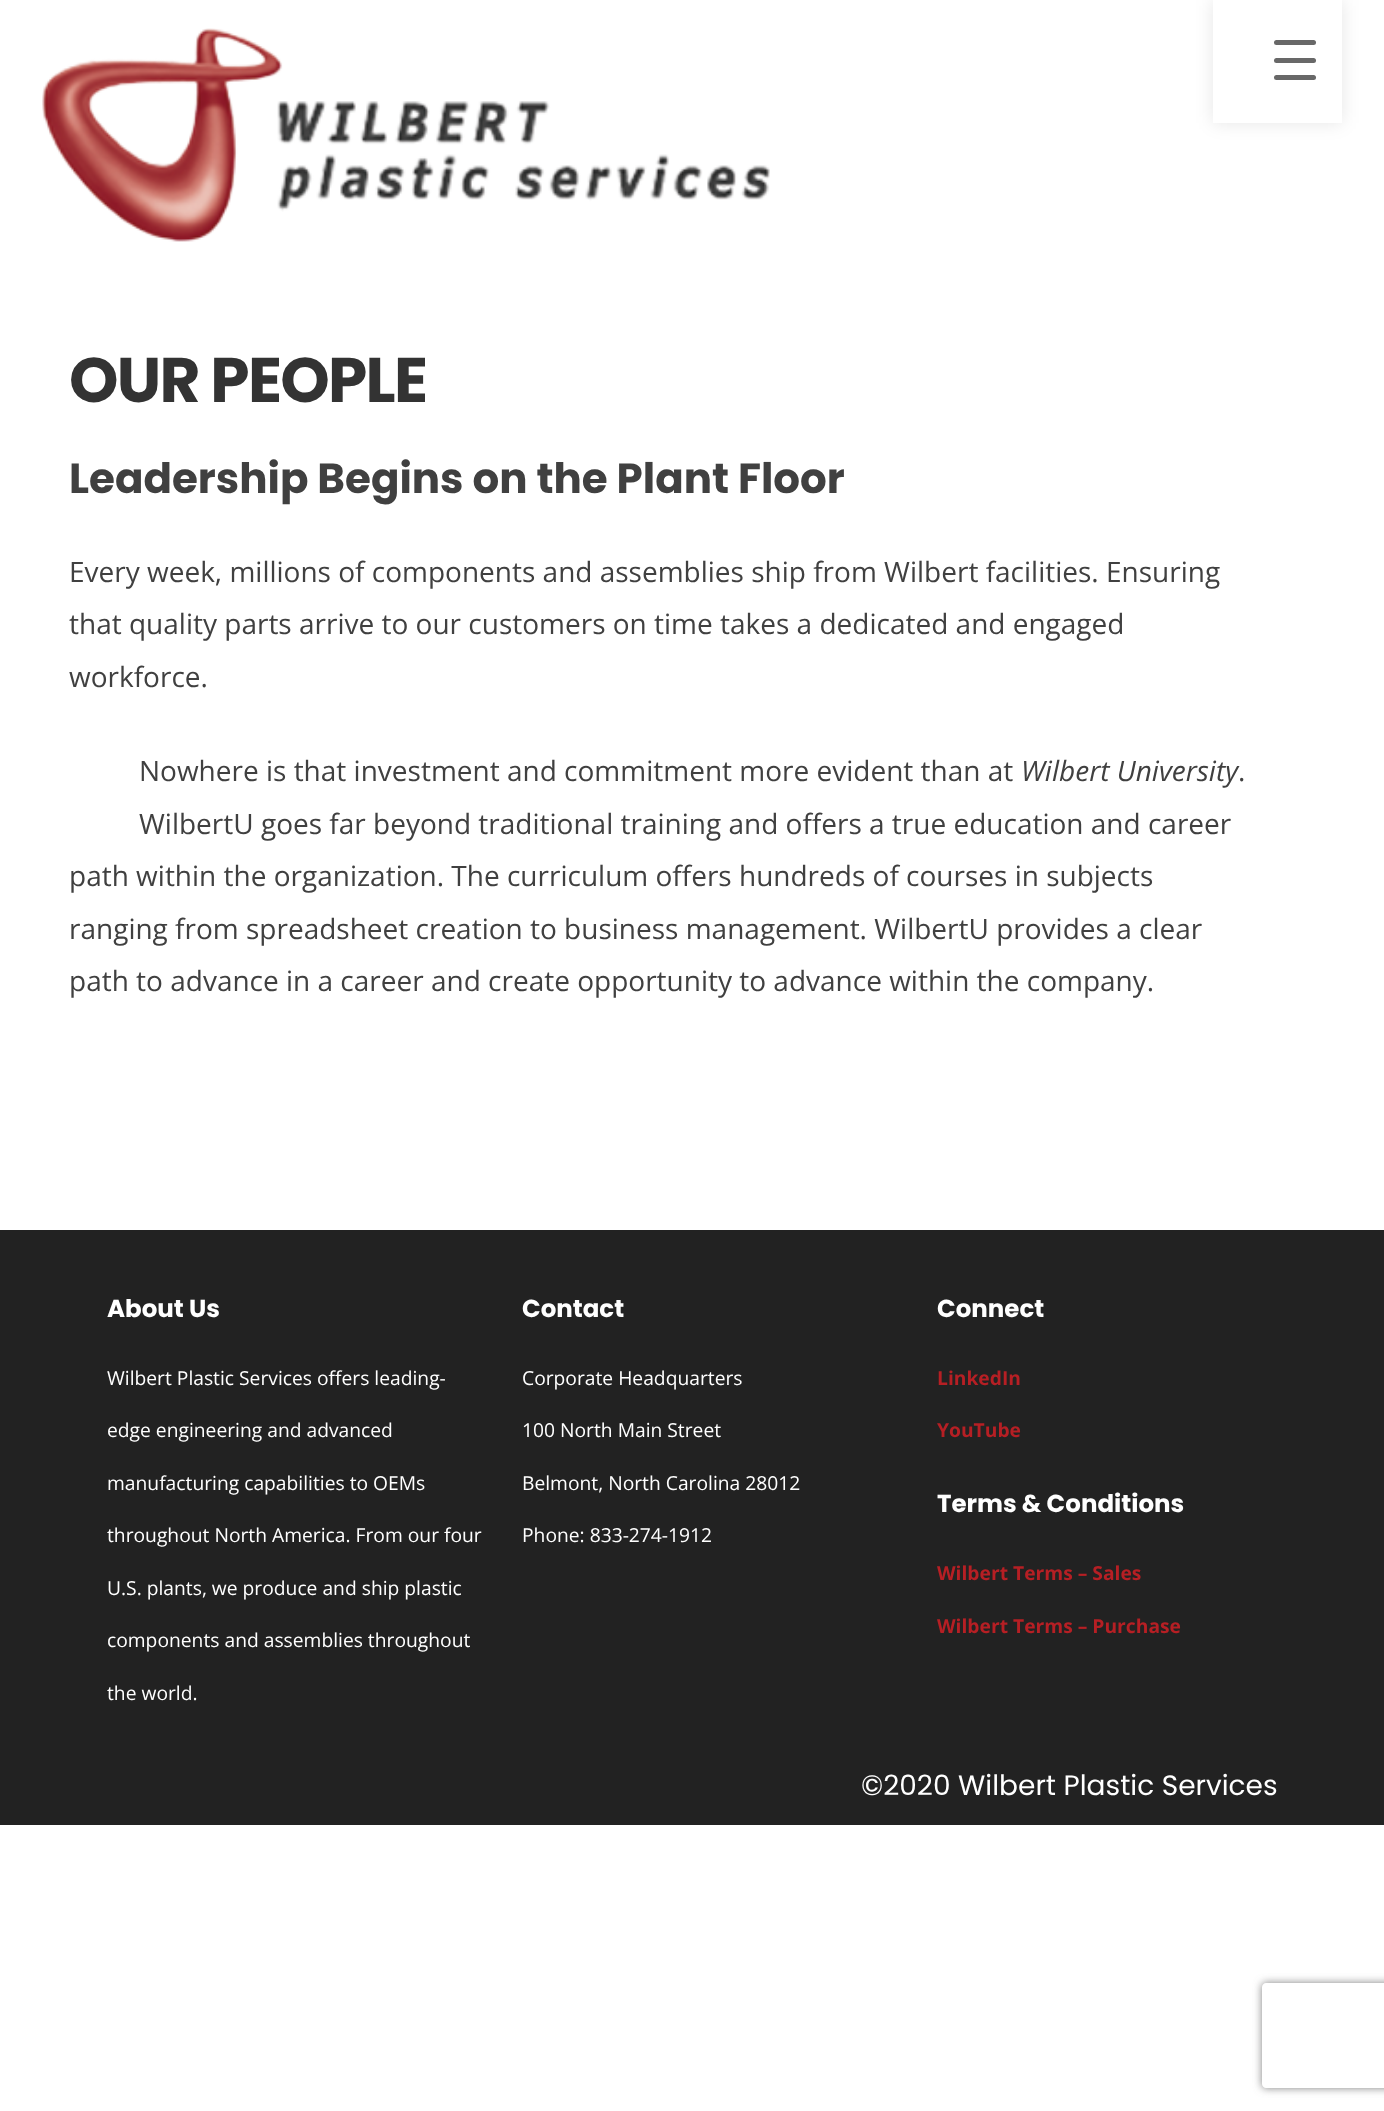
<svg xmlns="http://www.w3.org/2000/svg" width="1384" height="2111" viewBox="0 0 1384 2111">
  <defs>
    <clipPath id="clip1"><path d="M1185 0H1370V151H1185ZM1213 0H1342V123H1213Z" clip-rule="evenodd"/></clipPath>
    <filter id="blur1" x="-50%" y="-200%" width="200%" height="500%"><feGaussianBlur stdDeviation="9"/></filter>
    <clipPath id="clip2"><path d="M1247 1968H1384V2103H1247ZM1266 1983H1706C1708 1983 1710 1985 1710 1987V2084C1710 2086 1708 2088 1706 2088H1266C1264 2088 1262 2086 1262 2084V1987C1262 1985 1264 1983 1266 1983Z" clip-rule="evenodd"/></clipPath>
    <filter id="blur2" x="-50%" y="-200%" width="200%" height="500%"><feGaussianBlur stdDeviation="4.5"/></filter>
  </defs>
  <rect width="100%" height="100%" fill="#ffffff"/>
  <image x="42" y="28" width="728" height="214" href="img1.png"/>
  <g clip-path="url(#clip1)">
    <rect x="1213" y="0" width="129" height="123" fill="#000000" fill-opacity="0.1" filter="url(#blur1)"/>
  </g>
  <rect x="1274" y="58" width="42" height="5" rx="2.5" fill="#686868"/>
  <rect x="1274" y="40" width="42" height="5" rx="2.5" fill="#686868"/>
  <rect x="1274" y="75" width="42" height="5" rx="2.5" fill="#686868"/>
  <text x="69" y="402" font-family="Poppins" font-size="63" font-weight="bold" letter-spacing="-1.75" fill="#333333">OUR PEOPLE</text>
  <text x="69" y="493" font-family="Poppins" font-size="42" font-weight="bold" fill="#404040">Leadership Begins on the Plant Floor</text>
  <text x="69" y="582" font-family="Open Sans" font-size="28" fill="#404040">Every week, millions of components and assemblies ship from Wilbert facilities. Ensuring</text>
  <text x="69" y="634" font-family="Open Sans" font-size="28" fill="#404040">that quality parts arrive to our customers on time takes a dedicated and engaged</text>
  <text x="69" y="687" font-family="Open Sans" font-size="28" fill="#404040">workforce.</text>
  <text x="139" y="781" font-family="Open Sans" font-size="28" fill="#404040">Nowhere is that investment and commitment more evident than at</text>
  <text x="1021" y="781" font-family="Open Sans" font-size="28" font-style="italic" fill="#404040">Wilbert University</text>
  <text x="1238" y="781" font-family="Open Sans" font-size="28" fill="#404040">.</text>
  <text x="139" y="834" font-family="Open Sans" font-size="28" fill="#404040">WilbertU goes far beyond traditional training and offers a true education and career</text>
  <text x="69" y="886" font-family="Open Sans" font-size="28" fill="#404040">path within the organization. The curriculum offers hundreds of courses in subjects</text>
  <text x="69" y="939" font-family="Open Sans" font-size="28" fill="#404040">ranging from spreadsheet creation to business management. WilbertU provides a clear</text>
  <text x="69" y="991" font-family="Open Sans" font-size="28" fill="#404040">path to advance in a career and create opportunity to advance within the company.</text>
  <rect x="0" y="1230" width="1384" height="595" fill="#222222"/>
  <text x="107" y="1317" font-family="Poppins" font-size="24.5" font-weight="bold" fill="#ffffff">About Us</text>
  <text x="107" y="1385" font-family="Open Sans" font-size="19.25" fill="#ffffff">Wilbert Plastic Services offers leading-</text>
  <text x="107" y="1437" font-family="Open Sans" font-size="19.25" fill="#ffffff">edge engineering and advanced</text>
  <text x="107" y="1490" font-family="Open Sans" font-size="19.25" fill="#ffffff">manufacturing capabilities to OEMs</text>
  <text x="107" y="1542" font-family="Open Sans" font-size="19.25" fill="#ffffff">throughout North America. From our four</text>
  <text x="107" y="1595" font-family="Open Sans" font-size="19.25" fill="#ffffff">U.S. plants, we produce and ship plastic</text>
  <text x="107" y="1647" font-family="Open Sans" font-size="19.25" fill="#ffffff">components and assemblies throughout</text>
  <text x="107" y="1700" font-family="Open Sans" font-size="19.25" fill="#ffffff">the world.</text>
  <text x="522" y="1317" font-family="Poppins" font-size="24.5" font-weight="bold" fill="#ffffff">Contact</text>
  <text x="522" y="1385" font-family="Open Sans" font-size="19.25" fill="#ffffff">Corporate Headquarters</text>
  <text x="522" y="1437" font-family="Open Sans" font-size="19.25" fill="#ffffff">100 North Main Street</text>
  <text x="522" y="1490" font-family="Open Sans" font-size="19.25" fill="#ffffff">Belmont, North Carolina 28012</text>
  <text x="522" y="1542" font-family="Open Sans" font-size="19.25" fill="#ffffff">Phone: 833-274-1912</text>
  <text x="937" y="1317" font-family="Poppins" font-size="24.5" font-weight="bold" fill="#ffffff">Connect</text>
  <text x="937" y="1385" font-family="Open Sans" font-size="19.25" font-weight="bold" fill="#b61f24">LinkedIn</text>
  <text x="937" y="1437" font-family="Open Sans" font-size="19.25" font-weight="bold" fill="#b61f24">YouTube</text>
  <text x="937" y="1512" font-family="Poppins" font-size="24.5" font-weight="bold" fill="#ffffff">Terms &amp; Conditions</text>
  <text x="937" y="1580" font-family="Open Sans" font-size="19.25" font-weight="bold" fill="#b61f24">Wilbert Terms – Sales</text>
  <text x="937" y="1633" font-family="Open Sans" font-size="19.25" font-weight="bold" fill="#b61f24">Wilbert Terms – Purchase</text>
  <text x="861" y="1795" font-family="Poppins" font-size="28" fill="#ffffff">©2020 Wilbert Plastic Services</text>
  <g clip-path="url(#clip2)">
    <rect x="1262" y="1983" width="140" height="105" rx="4" fill="#808080" filter="url(#blur2)"/>
  </g>
</svg>
